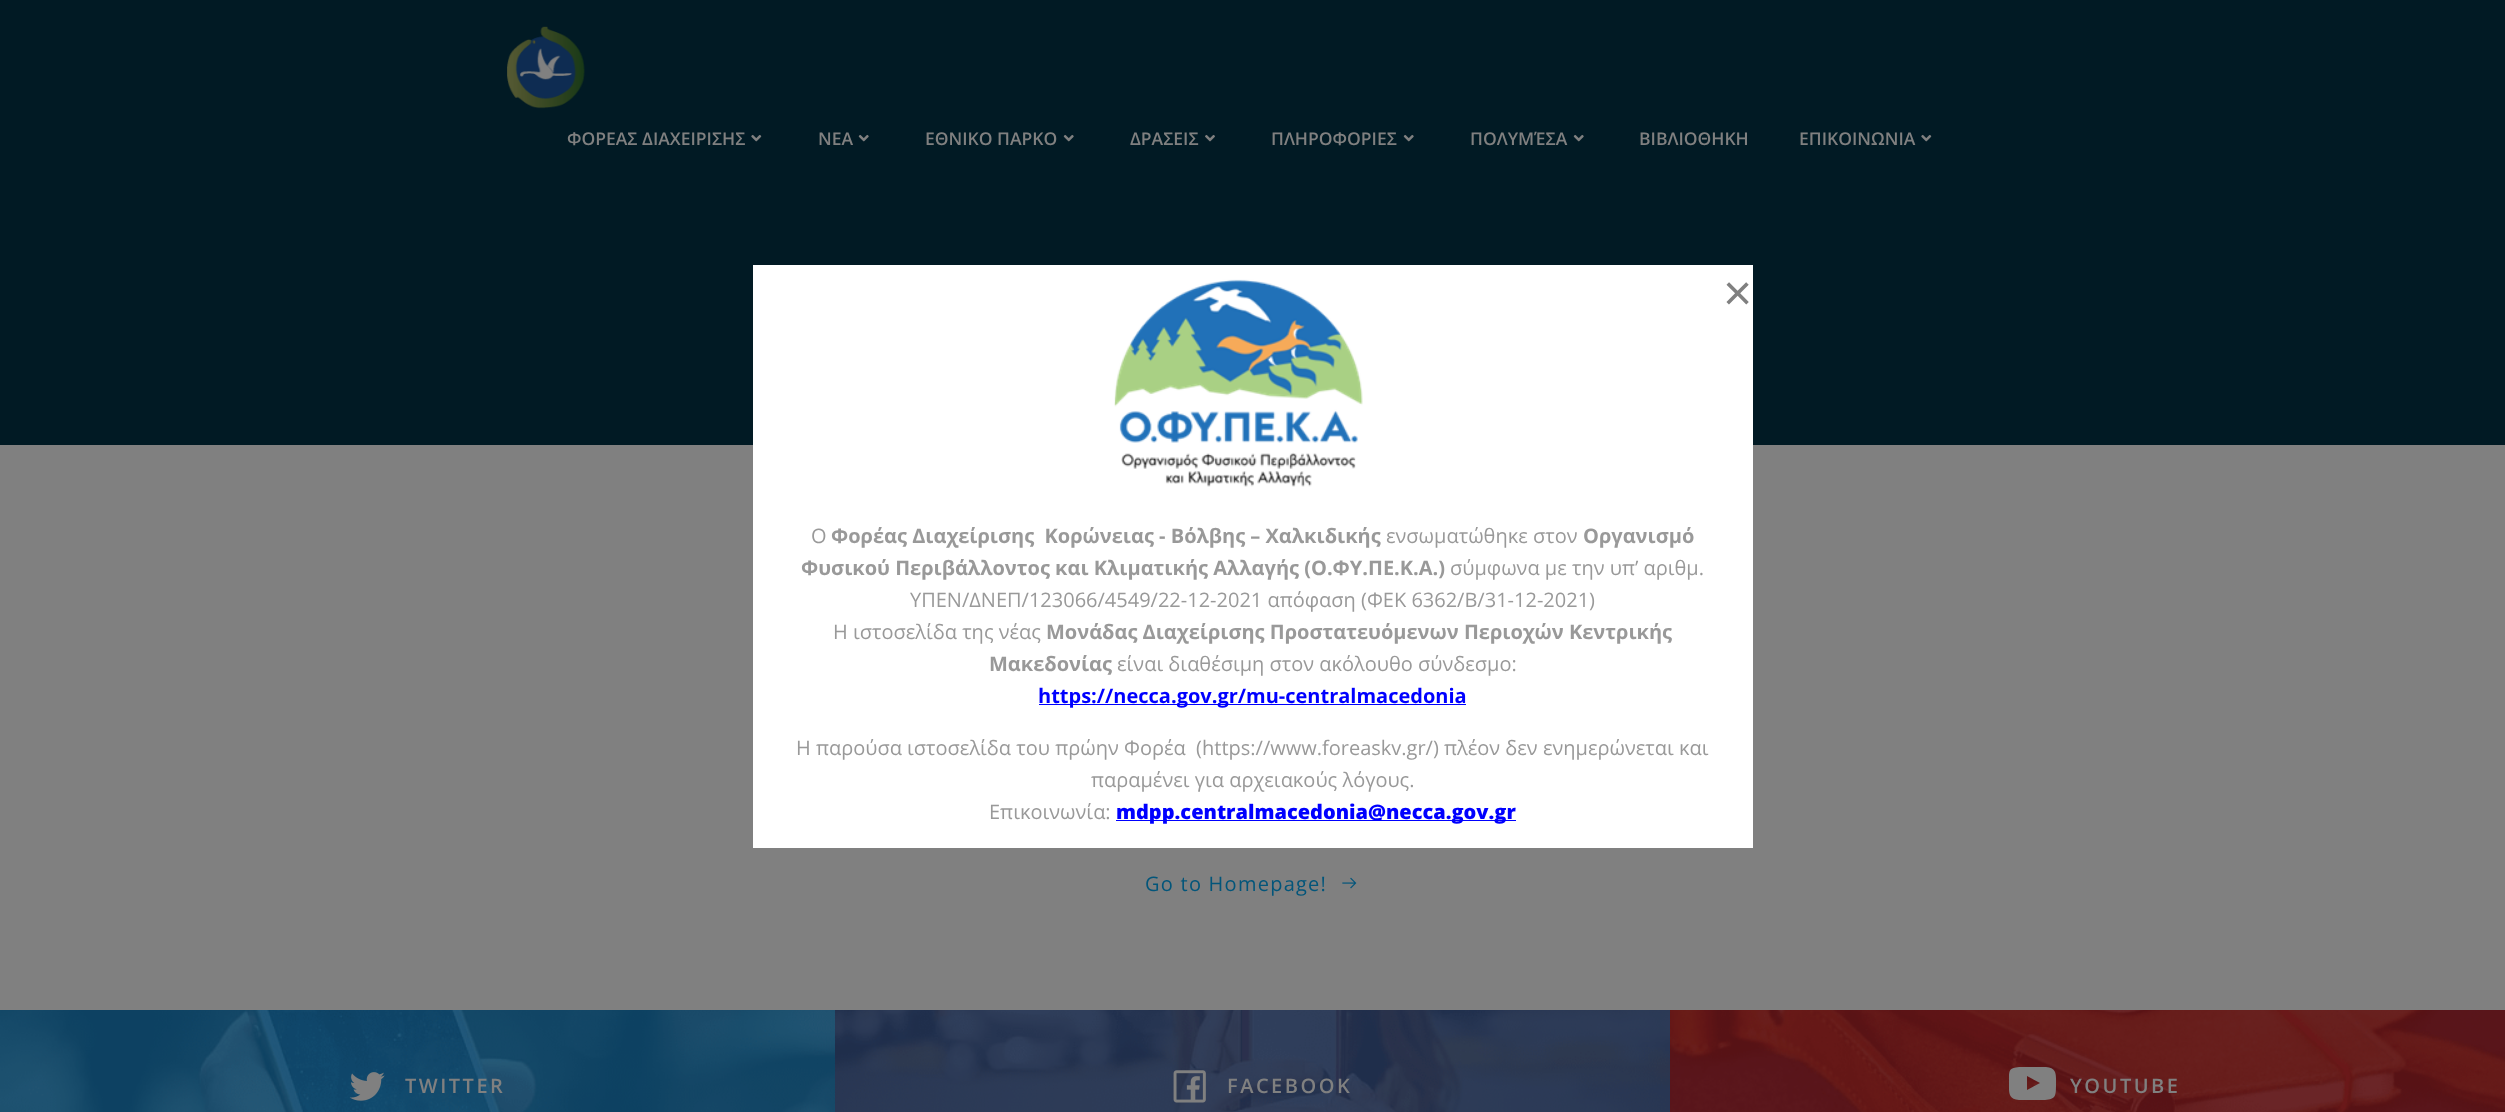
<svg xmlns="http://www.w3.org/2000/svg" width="2505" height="1112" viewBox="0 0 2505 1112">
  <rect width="100%" height="100%" fill="#808080"/>
  <rect x="0" y="0" width="2505" height="445" fill="#011a24"/>
  <image x="507" y="26" width="78" height="83" href="img1.png"/>
  <text x="567" y="145" font-family="Open Sans" font-size="17.5" font-weight="600" fill="#808080">ΦΟΡΕΑΣ ΔΙΑΧΕΙΡΙΣΗΣ</text>
  <image x="751" y="134" width="11" height="8" href="img2.png"/>
  <text x="818" y="145" font-family="Open Sans" font-size="17.5" font-weight="600" fill="#808080">ΝΕΑ</text>
  <image x="858" y="134" width="11" height="8" href="img3.png"/>
  <text x="925" y="145" font-family="Open Sans" font-size="17.5" font-weight="600" fill="#808080">ΕΘΝΙΚΟ ΠΑΡΚΟ</text>
  <image x="1063" y="134" width="11" height="8" href="img3.png"/>
  <text x="1130" y="145" font-family="Open Sans" font-size="17.5" font-weight="600" fill="#808080">ΔΡΑΣΕΙΣ</text>
  <image x="1205" y="134" width="10" height="8" href="img4.png"/>
  <text x="1271" y="145" font-family="Open Sans" font-size="17.5" font-weight="600" fill="#808080">ΠΛΗΡΟΦΟΡΙΕΣ</text>
  <image x="1403" y="134" width="11" height="8" href="img3.png"/>
  <text x="1470" y="145" font-family="Open Sans" font-size="17.5" font-weight="600" fill="#808080">ΠΟΛΥΜΈΣΑ</text>
  <image x="1573" y="134" width="11" height="8" href="img3.png"/>
  <text x="1639" y="145" font-family="Open Sans" font-size="17.5" font-weight="600" fill="#808080">ΒΙΒΛΙΟΘΗΚΗ</text>
  <text x="1799" y="145" font-family="Open Sans" font-size="17.5" font-weight="600" fill="#808080">ΕΠΙΚΟΙΝΩΝΙΑ</text>
  <image x="1921" y="134" width="11" height="8" href="img2.png"/>
  <text x="1145" y="891" font-family="Open Sans" font-size="20" letter-spacing="1.25" fill="#02557a">Go to Homepage!</text>
  <image x="1342" y="877" width="15" height="12" href="img5.png"/>
  <image x="0" y="1010" width="835" height="102" href="img6.png"/>
  <image x="349" y="1072" width="36" height="29" href="img7.png"/>
  <text x="405" y="1093" font-family="Open Sans" font-size="20" font-weight="600" letter-spacing="2.5" fill="#808080">TWITTER</text>
  <image x="835" y="1010" width="835" height="102" href="img8.png"/>
  <image x="1173" y="1070" width="33" height="33" href="img9.png"/>
  <text x="1227" y="1093" font-family="Open Sans" font-size="20" font-weight="600" letter-spacing="2.5" fill="#808080">FACEBOOK</text>
  <image x="1670" y="1010" width="835" height="102" href="img10.png"/>
  <path d="M2027 1090L2040 1083L2027 1076ZM2032 1067H2046C2057 1068 2056 1074 2056 1084C2056 1096 2056 1099 2045 1100H2019C2008 1099 2009 1093 2009 1083C2009 1071 2008 1068 2019 1067Z" fill="#808080"/>
  <text x="2070" y="1093" font-family="Open Sans" font-size="20" font-weight="600" letter-spacing="2.5" fill="#808080">YOUTUBE</text>
  <rect x="753" y="265" width="1000" height="583" fill="#ffffff"/>
  <image x="1114" y="279" width="249" height="208" href="img11.png"/>
  <text x="1723" y="310" font-family="Liberation Sans" font-size="50" fill="#808080">×</text>
  <text x="811" y="543" font-family="Open Sans" font-size="20" fill="#999999">O</text>
  <text x="831" y="543" font-family="Open Sans" font-size="20" font-weight="bold" fill="#999999" xml:space="preserve">Φορέας Διαχείρισης  Κορώνειας - Βόλβης – Χαλκιδικής</text>
  <text x="1386" y="543" font-family="Open Sans" font-size="20" fill="#999999">ενσωματώθηκε στον</text>
  <text x="1583" y="543" font-family="Open Sans" font-size="20" font-weight="bold" fill="#999999">Οργανισμό</text>
  <text x="801" y="575" font-family="Open Sans" font-size="20" font-weight="bold" fill="#999999">Φυσικού Περιβάλλοντος και Κλιματικής Αλλαγής (Ο.ΦΥ.ΠΕ.Κ.Α.)</text>
  <text x="1450" y="575" font-family="Open Sans" font-size="20" fill="#999999">σύμφωνα με την υπ’ αριθμ.</text>
  <text x="910" y="607" font-family="Open Sans" font-size="20" fill="#999999">ΥΠΕΝ/ΔΝΕΠ/123066/4549/22-12-2021 απόφαση (ΦΕΚ 6362/Β/31-12-2021)</text>
  <text x="833" y="639" font-family="Open Sans" font-size="20" fill="#999999">Η ιστοσελίδα της νέας</text>
  <text x="1046" y="639" font-family="Open Sans" font-size="20" font-weight="bold" fill="#999999">Μονάδας Διαχείρισης Προστατευόμενων Περιοχών Κεντρικής</text>
  <text x="989" y="671" font-family="Open Sans" font-size="20" font-weight="bold" fill="#999999">Μακεδονίας</text>
  <text x="1117" y="671" font-family="Open Sans" font-size="20" fill="#999999">είναι διαθέσιμη στον ακόλουθο σύνδεσμο:</text>
  <rect x="1039" y="704" width="427" height="1" fill="#0000ff"/>
  <text x="1038" y="703" font-family="Open Sans" font-size="20" font-weight="bold" fill="#0000ff">https://necca.gov.gr/mu-centralmacedonia</text>
  <text x="796" y="755" font-family="Open Sans" font-size="20" fill="#999999" xml:space="preserve">Η παρούσα ιστοσελίδα του πρώην Φορέα  (https://www.foreaskv.gr/) πλέον δεν ενημερώνεται και</text>
  <text x="1091" y="787" font-family="Open Sans" font-size="20" fill="#999999">παραμένει για αρχειακούς λόγους.</text>
  <text x="989" y="819" font-family="Open Sans" font-size="20" fill="#999999">Επικοινωνία:</text>
  <rect x="1116" y="820" width="400" height="1" fill="#0000ff"/>
  <text x="1116" y="819" font-family="Open Sans" font-size="20" font-weight="800" fill="#0000ff">mdpp.centralmacedonia@necca.gov.gr</text>
</svg>
